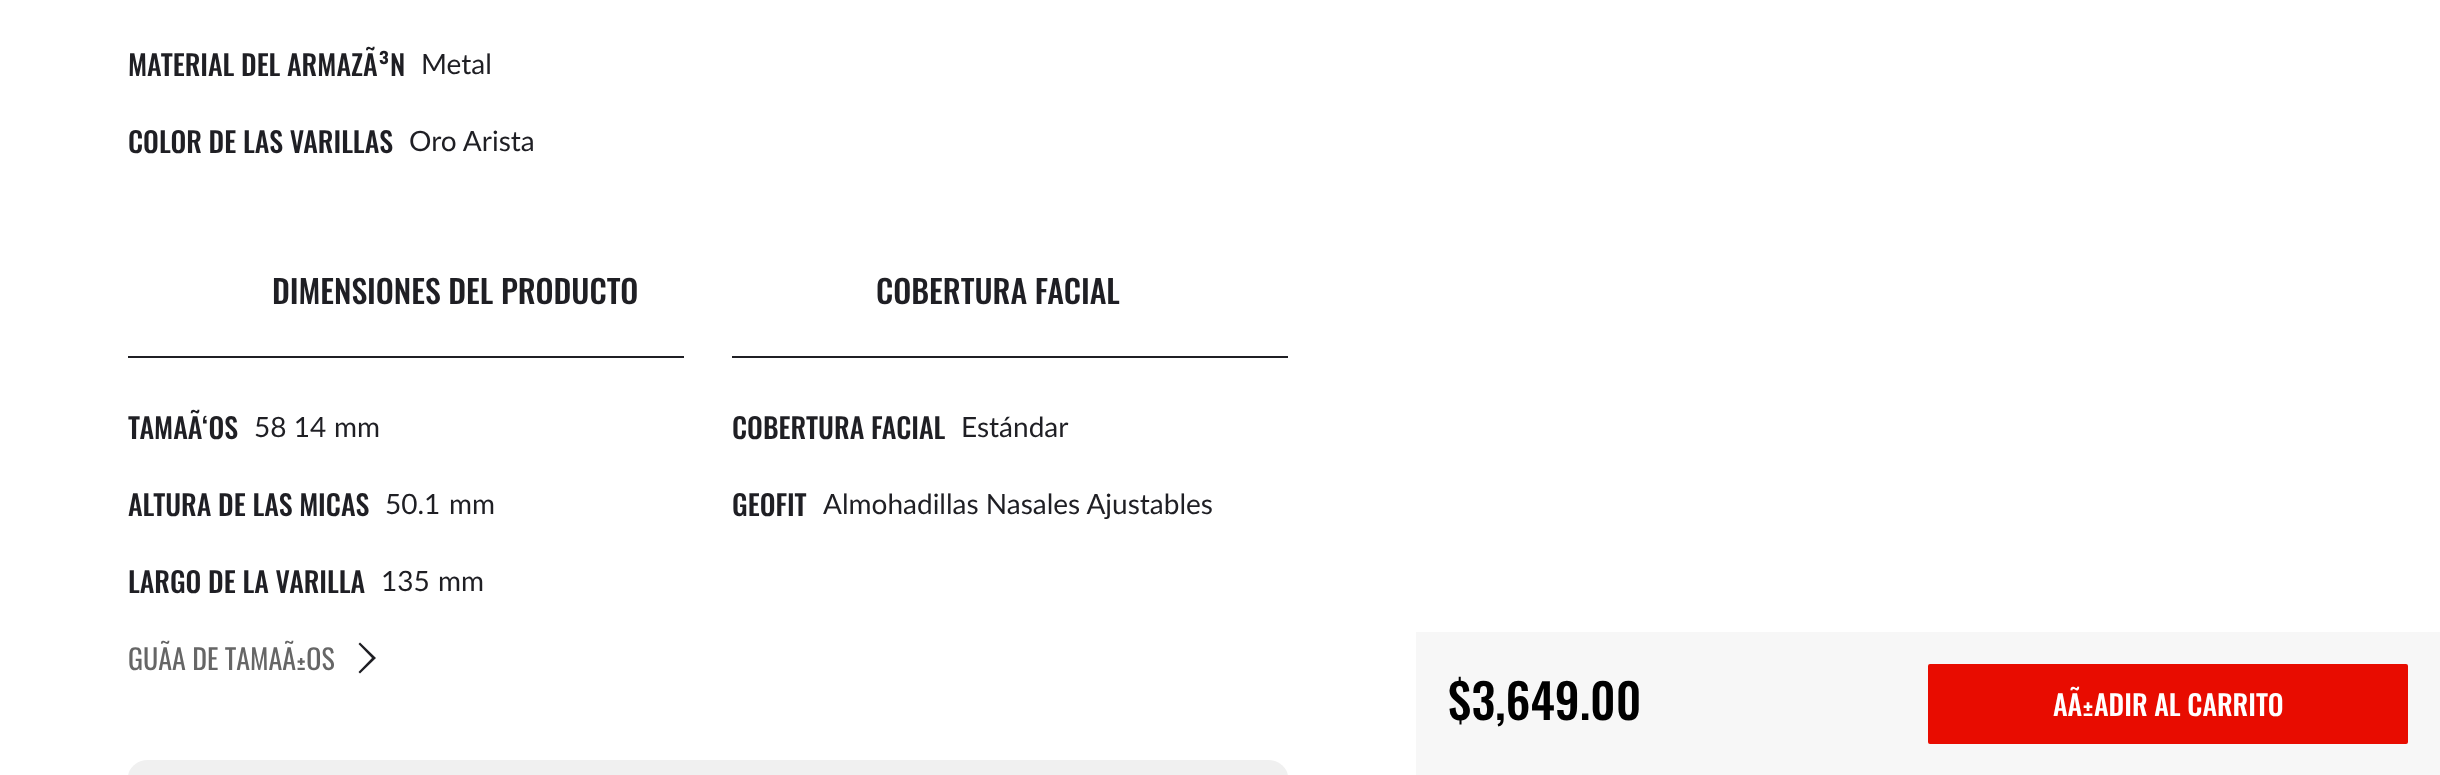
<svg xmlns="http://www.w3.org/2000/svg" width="2440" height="775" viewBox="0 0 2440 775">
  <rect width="100%" height="100%" fill="#ffffff"/>
  <text x="128" y="76" font-family="Oswald" font-size="28" font-weight="500" fill="#1f1f24">MATERIAL DEL ARMAZÃ³N</text>
  <text x="421" y="74" font-family="Lato" font-size="28" fill="#1f1f24">Metal</text>
  <text x="128" y="153" font-family="Oswald" font-size="28" font-weight="500" fill="#1f1f24">COLOR DE LAS VARILLAS</text>
  <text x="409" y="151" font-family="Lato" font-size="28" fill="#1f1f24">Oro Arista</text>
  <rect x="128" y="356" width="556" height="2" fill="#1f1f24"/>
  <text x="272" y="304" font-family="Oswald" font-size="32" font-weight="500" fill="#1f1f24">DIMENSIONES DEL PRODUCTO</text>
  <text x="128" y="439" font-family="Oswald" font-size="28" font-weight="500" fill="#1f1f24">TAMAÃ‘OS</text>
  <text x="254" y="437" font-family="Lato" font-size="28" fill="#1f1f24">58 14</text>
  <text x="334" y="437" font-family="Lato" font-size="28" fill="#1f1f24">mm</text>
  <text x="128" y="516" font-family="Oswald" font-size="28" font-weight="500" fill="#1f1f24">ALTURA DE LAS MICAS</text>
  <text x="385" y="514" font-family="Lato" font-size="28" fill="#1f1f24">50.1</text>
  <text x="449" y="514" font-family="Lato" font-size="28" fill="#1f1f24">mm</text>
  <text x="128" y="593" font-family="Oswald" font-size="28" font-weight="500" fill="#1f1f24">LARGO DE LA VARILLA</text>
  <text x="381" y="591" font-family="Lato" font-size="28" fill="#1f1f24">135</text>
  <text x="438" y="591" font-family="Lato" font-size="28" fill="#1f1f24">mm</text>
  <text x="128" y="670" font-family="Oswald" font-size="28" fill="#666666">GUÃA DE TAMAÃ±OS</text>
  <path d="M376 658L360 673.5L358.5 672L372 658L358.5 644L360 642.5Z" fill="#1f1f24"/>
  <rect x="732" y="356" width="556" height="2" fill="#1f1f24"/>
  <text x="876" y="304" font-family="Oswald" font-size="32" font-weight="500" fill="#1f1f24">COBERTURA FACIAL</text>
  <text x="732" y="439" font-family="Oswald" font-size="28" font-weight="500" fill="#1f1f24">COBERTURA FACIAL</text>
  <text x="961" y="437" font-family="Lato" font-size="28" fill="#1f1f24">Estándar</text>
  <text x="732" y="516" font-family="Oswald" font-size="28" font-weight="500" fill="#1f1f24">GEOFIT</text>
  <text x="823" y="514" font-family="Lato" font-size="28" fill="#1f1f24">Almohadillas Nasales Ajustables</text>
  <rect x="128" y="760" width="1160" height="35" rx="20" fill="#f0f0f0"/>
  <rect x="1416" y="632" width="1024" height="143" fill="#f7f7f7"/>
  <text x="1448" y="720" font-family="Oswald" font-size="48" font-weight="500" fill="#000000">$3,649.00</text>
  <rect x="1928" y="664" width="480" height="80" rx="2" fill="#e80c00"/>
  <text x="2053" y="716" font-family="Oswald" font-size="28" font-weight="500" fill="#ffffff">AÃ±ADIR AL CARRITO</text>
</svg>
